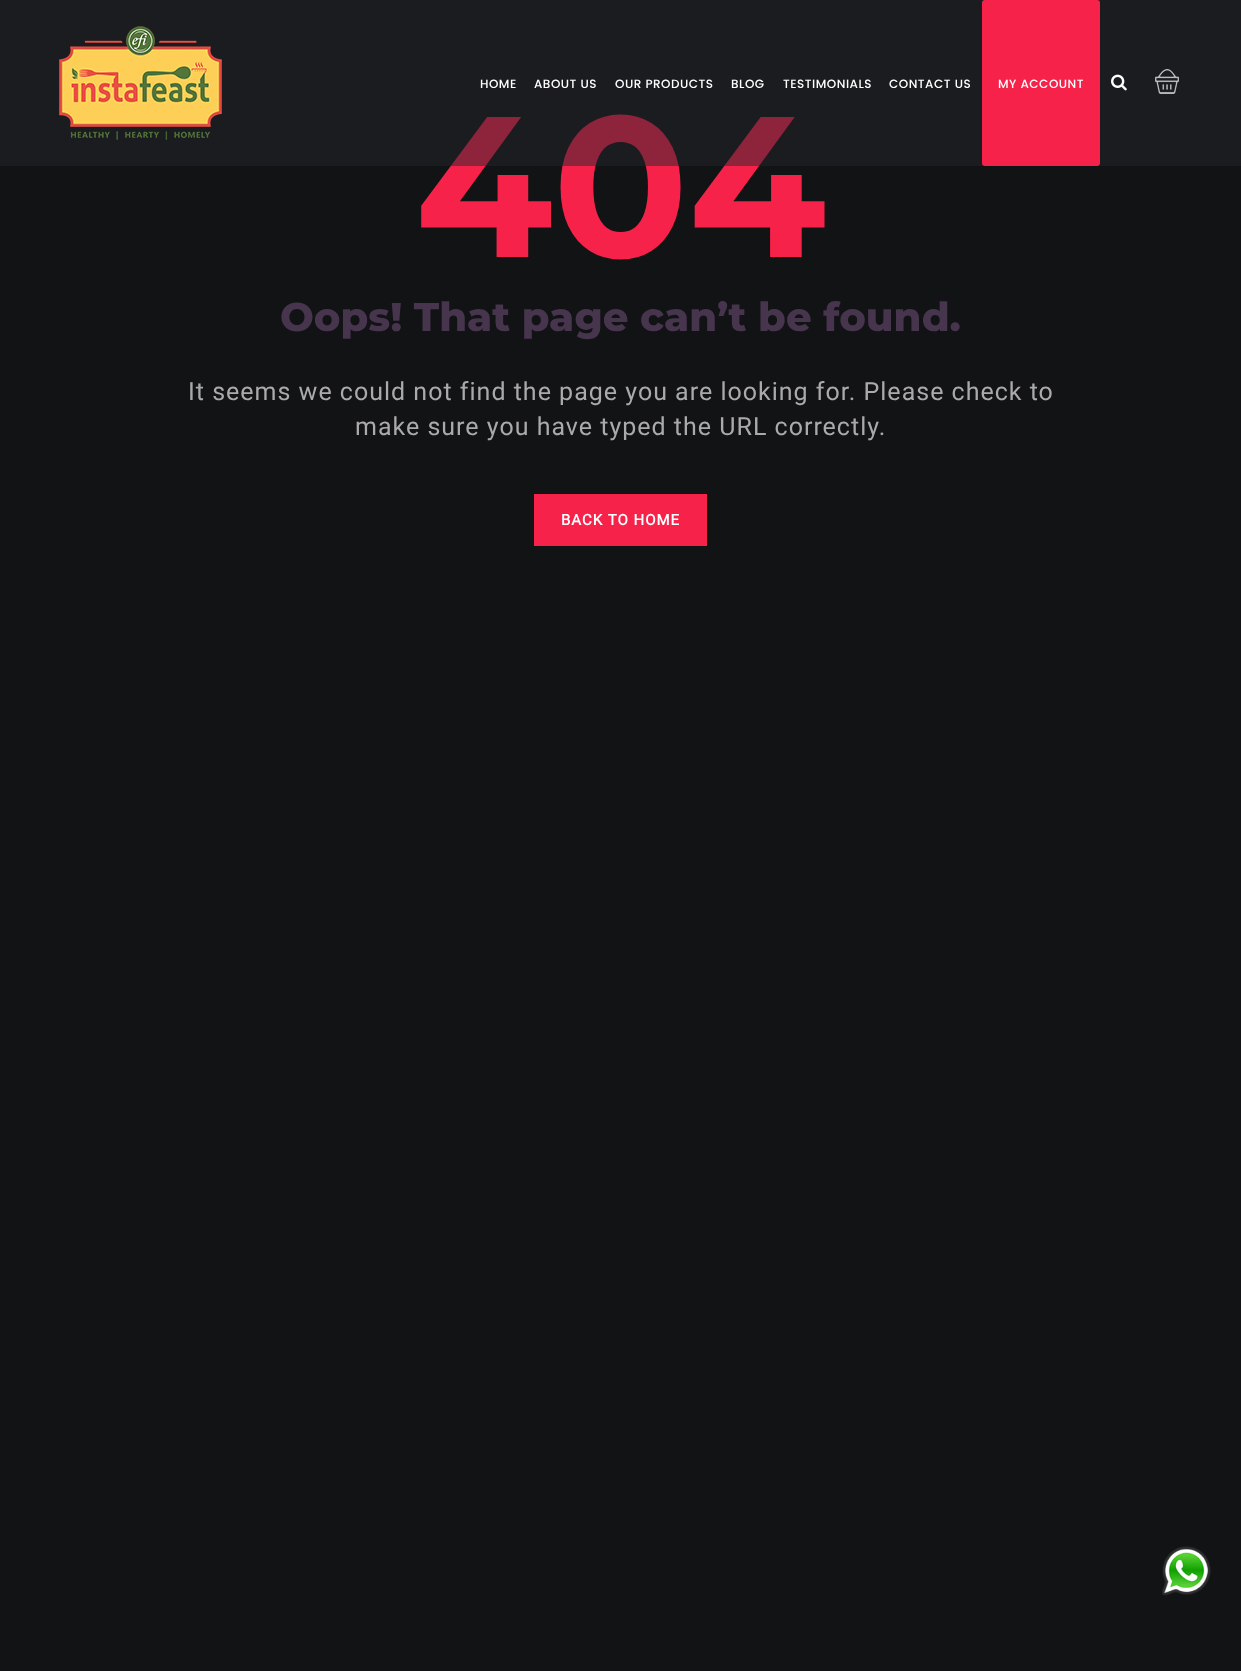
<svg xmlns="http://www.w3.org/2000/svg" width="1241" height="1671" viewBox="0 0 1241 1671">
  <rect width="100%" height="100%" fill="#121315"/>
  <text x="415" y="257" font-family="Montserrat" font-size="200" font-weight="bold" fill="#f7224a">404</text>
  <rect x="0" y="0" width="1241" height="166" fill="#24262b" fill-opacity="0.5"/>
  <image x="59" y="26" width="163" height="114" href="img1.png"/>
  <text x="480" y="88" font-family="Poppins" font-size="12" font-weight="500" letter-spacing="0.5" fill="#ffffff">HOME</text>
  <text x="534" y="88" font-family="Poppins" font-size="12" font-weight="500" letter-spacing="0.5" fill="#ffffff">ABOUT US</text>
  <text x="615" y="88" font-family="Poppins" font-size="12" font-weight="500" letter-spacing="0.5" fill="#ffffff">OUR PRODUCTS</text>
  <text x="731" y="88" font-family="Poppins" font-size="12" font-weight="500" letter-spacing="0.5" fill="#ffffff">BLOG</text>
  <text x="783" y="88" font-family="Poppins" font-size="12" font-weight="500" letter-spacing="0.5" fill="#ffffff">TESTIMONIALS</text>
  <text x="889" y="88" font-family="Poppins" font-size="12" font-weight="500" letter-spacing="0.5" fill="#ffffff">CONTACT US</text>
  <rect x="982" y="0" width="118" height="166" rx="3" fill="#f7224a"/>
  <text x="998" y="88" font-family="Poppins" font-size="12" font-weight="500" letter-spacing="0.5" fill="#ffffff">MY ACCOUNT</text>
  <image x="1111" y="74" width="16" height="17" href="img2.png"/>
  <image x="1155" y="69" width="24" height="25" href="img3.png"/>
  <text x="280" y="331" font-family="Montserrat" font-size="40" font-weight="800" fill="#47354e">Oops! That page can’t be found.</text>
  <text x="188" y="400" font-family="Roboto" font-size="25" letter-spacing="1" fill="#aaaaaa">It seems we could not find the page you are looking for. Please check to</text>
  <text x="355" y="435" font-family="Roboto" font-size="25" letter-spacing="1" fill="#aaaaaa">make sure you have typed the URL correctly.</text>
  <rect x="534" y="494" width="173" height="52" fill="#f7224a"/>
  <text x="561" y="525" font-family="Roboto" font-size="15" font-weight="bold" letter-spacing="1" fill="#ffffff">BACK TO HOME</text>
  <image x="1162" y="1546" width="49" height="50" href="img4.png"/>
</svg>
